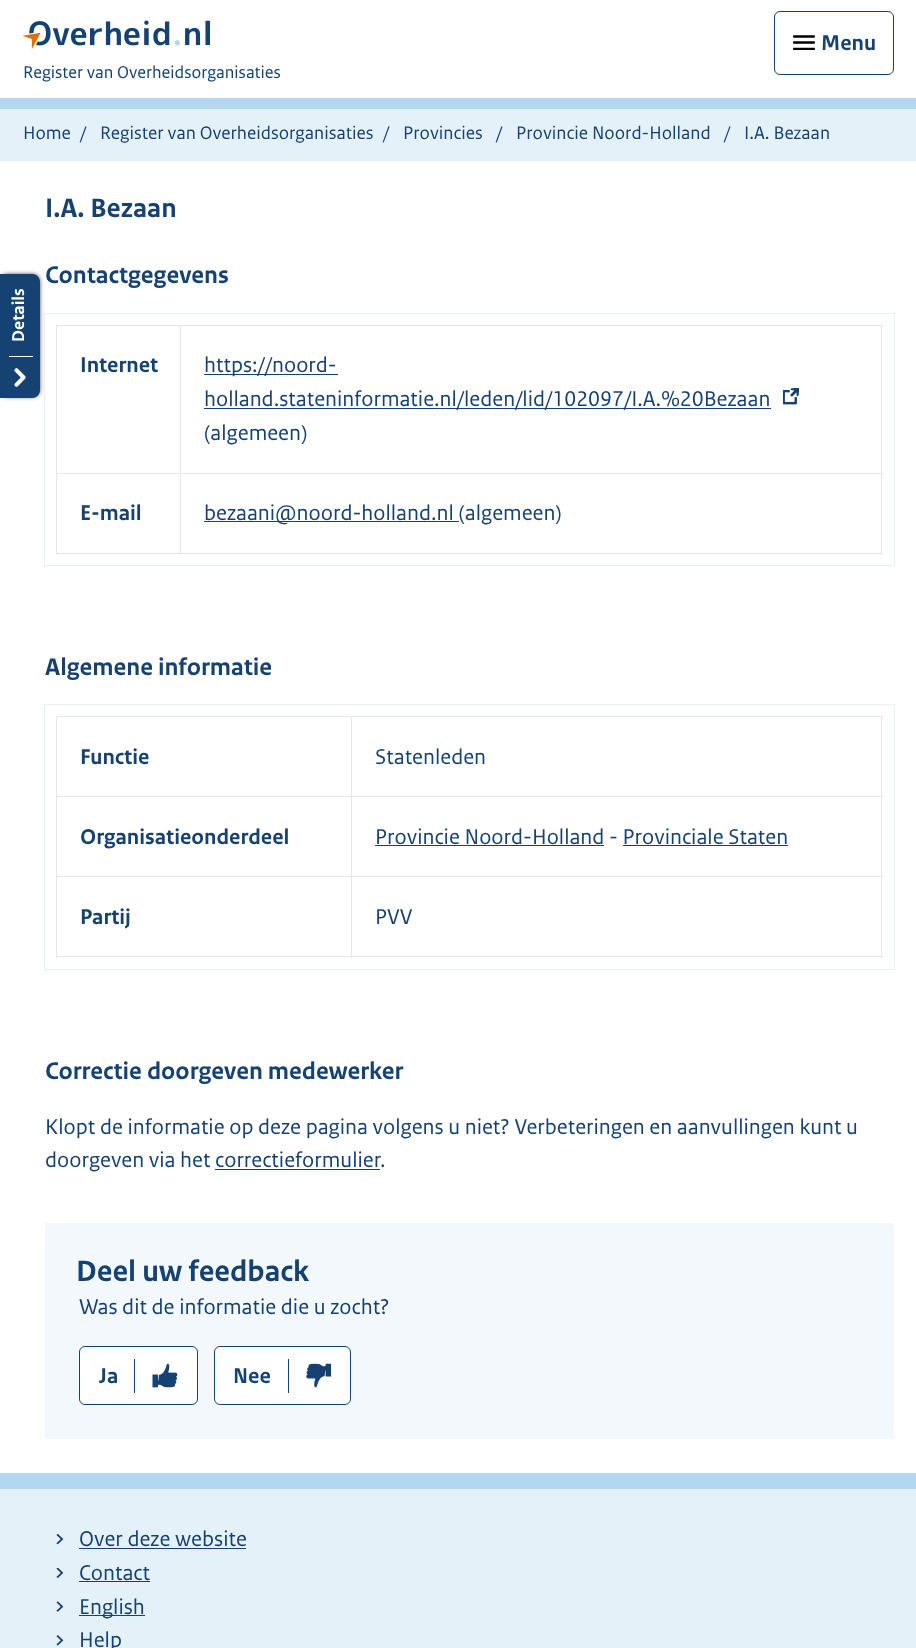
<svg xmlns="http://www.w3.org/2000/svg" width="916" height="1648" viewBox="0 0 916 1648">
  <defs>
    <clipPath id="clip1"><rect x="793" y="35" width="22" height="15"/></clipPath>
    <filter id="blur1" x="-50%" y="-200%" width="200%" height="500%"><feGaussianBlur stdDeviation="2.5"/></filter>
  </defs>
  <rect width="100%" height="100%" fill="#ffffff"/>
  <rect x="0" y="98" width="916" height="11" fill="#b2d7ee"/>
  <g clip-path="url(#clip1)">
    <path d="M794.5 36.5H813.5M794.5 42.5H813.5M794.5 49H813.5" fill="none" stroke="#000000" stroke-width="2.7" stroke-linecap="square"/>
  </g>
  <rect x="774.5" y="11.5" width="119" height="63" rx="5.5" fill="none" stroke="#154273"/>
  <text x="821" y="50" font-family="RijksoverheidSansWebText" font-size="22.5" font-weight="bold" fill="#154273">Menu</text>
  <image x="23" y="20" width="187" height="29" href="img1.png"/>
  <text x="23" y="78" font-family="RijksoverheidSansWebText" font-size="18" fill="#154273">Register van Overheidsorganisaties</text>
  <rect x="0" y="109" width="916" height="52" fill="#e5f1f9"/>
  <text x="23" y="139" font-family="RijksoverheidSansWebText" font-size="19.1" fill="#154273">Home</text>
  <text x="80" y="139" font-family="RijksoverheidSansWebText" font-size="19.1" fill="#154273">/</text>
  <text x="100" y="139" font-family="RijksoverheidSansWebText" font-size="19.1" fill="#154273">Register van Overheidsorganisaties</text>
  <text x="383" y="139" font-family="RijksoverheidSansWebText" font-size="19.1" fill="#154273">/</text>
  <text x="403" y="139" font-family="RijksoverheidSansWebText" font-size="19.1" fill="#154273">Provincies</text>
  <text x="496" y="139" font-family="RijksoverheidSansWebText" font-size="19.1" fill="#154273">/</text>
  <text x="516" y="139" font-family="RijksoverheidSansWebText" font-size="19.1" fill="#154273">Provincie Noord-Holland</text>
  <text x="724" y="139" font-family="RijksoverheidSansWebText" font-size="19.1" fill="#154273">/</text>
  <text x="744" y="139" font-family="RijksoverheidSansWebText" font-size="19.1" fill="#154273">I.A. Bezaan</text>
  <rect x="1" y="275" width="38" height="121" rx="6" fill="#000000" filter="url(#blur1)"/>
  <path d="M0 274H32C36.5 274 40 277.5 40 282V390C40 394.5 36.5 398 32 398H0Z" fill="#154273"/>
  <image x="14" y="368" width="12" height="19" href="img2.png"/>
  <text x="24" y="342" transform="rotate(-90 24 342)" font-family="RijksoverheidSansWebText" font-size="18" font-weight="bold" fill="#ffffff">Details</text>
  <rect x="9" y="356" width="24" height="1" fill="#ffffff"/>
  <text x="45" y="217" font-family="RijksoverheidSansWebText" font-size="28" font-weight="bold" fill="#154273">I.A. Bezaan</text>
  <text x="45" y="283" font-family="RijksoverheidSansWebText" font-size="25.25" font-weight="bold" fill="#154273">Contactgegevens</text>
  <rect x="56" y="325" width="827" height="1" fill="#e6e6e6"/>
  <rect x="881" y="325" width="1" height="229" fill="#e6e6e6"/>
  <rect x="56" y="553" width="827" height="1" fill="#e6e6e6"/>
  <rect x="56" y="325" width="1" height="229" fill="#e6e6e6"/>
  <rect x="180" y="473" width="1" height="81" fill="#e6e6e6"/>
  <rect x="180" y="473" width="703" height="1" fill="#e6e6e6"/>
  <rect x="180" y="325" width="1" height="149" fill="#e6e6e6"/>
  <rect x="56" y="473" width="125" height="1" fill="#e6e6e6"/>
  <rect x="204" y="521" width="255" height="1" fill="#154273"/>
  <rect x="44.5" y="313.5" width="850" height="252" fill="none" stroke="#e5f1f9"/>
  <text x="80" y="372" font-family="RijksoverheidSansWebText" font-size="22.5" font-weight="bold" fill="#154273">Internet</text>
  <rect x="204" y="374" width="134" height="1" fill="#154273"/>
  <text x="204" y="372" font-family="RijksoverheidSansWebText" font-size="22.5" fill="#154273">https://noord-</text>
  <rect x="204" y="408" width="567" height="1" fill="#154273"/>
  <text x="204" y="406" font-family="RijksoverheidSansWebText" font-size="22.5" fill="#154273">holland.stateninformatie.nl/leden/lid/102097/I.A.%20Bezaan</text>
  <image x="783" y="388" width="16" height="17" href="img3.png"/>
  <text x="204" y="440" font-family="RijksoverheidSansWebText" font-size="22.5" fill="#154273">(algemeen)</text>
  <text x="80" y="520" font-family="RijksoverheidSansWebText" font-size="22.5" font-weight="bold" fill="#154273">E-mail</text>
  <text x="204" y="520" font-family="RijksoverheidSansWebText" font-size="22.5" fill="#154273">bezaani@noord-holland.nl (algemeen)</text>
  <text x="45" y="675" font-family="RijksoverheidSansWebText" font-size="25.25" font-weight="bold" fill="#154273">Algemene informatie</text>
  <rect x="56" y="716" width="827" height="1" fill="#e6e6e6"/>
  <rect x="881" y="716" width="1" height="242" fill="#e6e6e6"/>
  <rect x="56" y="956" width="827" height="1" fill="#e6e6e6"/>
  <rect x="56" y="716" width="1" height="242" fill="#e6e6e6"/>
  <rect x="351" y="876" width="1" height="82" fill="#e6e6e6"/>
  <rect x="351" y="876" width="532" height="1" fill="#e6e6e6"/>
  <rect x="351" y="796" width="1" height="82" fill="#e6e6e6"/>
  <rect x="351" y="796" width="532" height="1" fill="#e6e6e6"/>
  <rect x="351" y="716" width="1" height="82" fill="#e6e6e6"/>
  <rect x="56" y="796" width="297" height="1" fill="#e6e6e6"/>
  <rect x="56" y="876" width="297" height="1" fill="#e6e6e6"/>
  <rect x="375" y="845" width="229" height="1" fill="#154273"/>
  <rect x="623" y="845" width="165" height="1" fill="#154273"/>
  <rect x="44.5" y="704.5" width="850" height="265" fill="none" stroke="#e5f1f9"/>
  <text x="80" y="764" font-family="RijksoverheidSansWebText" font-size="22.5" font-weight="bold" fill="#154273">Functie</text>
  <text x="375" y="764" font-family="RijksoverheidSansWebText" font-size="22.5" fill="#154273">Statenleden</text>
  <text x="80" y="844" font-family="RijksoverheidSansWebText" font-size="22.5" font-weight="bold" fill="#154273">Organisatieonderdeel</text>
  <text x="375" y="844" font-family="RijksoverheidSansWebText" font-size="22.5" fill="#154273">Provincie Noord-Holland - Provinciale Staten</text>
  <text x="80" y="924" font-family="RijksoverheidSansWebText" font-size="22.5" font-weight="bold" fill="#154273">Partij</text>
  <text x="375" y="924" font-family="RijksoverheidSansWebText" font-size="22.5" fill="#154273">PVV</text>
  <text x="45" y="1079" font-family="RijksoverheidSansWebText" font-size="25.25" font-weight="bold" fill="#154273">Correctie doorgeven medewerker</text>
  <text x="45" y="1134" font-family="RijksoverheidSansWebText" font-size="22.5" fill="#154273">Klopt de informatie op deze pagina volgens u niet? Verbeteringen en aanvullingen kunt u</text>
  <text x="45" y="1167" font-family="RijksoverheidSansWebText" font-size="22.5" fill="#154273">doorgeven via het correctieformulier</text>
  <text x="380" y="1167" font-family="RijksoverheidSansWebText" font-size="22.5" fill="#154273">.</text>
  <rect x="215" y="1169" width="165" height="1" fill="#154273"/>
  <rect x="45" y="1223" width="849" height="216" fill="#f2f8fc"/>
  <text x="76" y="1281" font-family="RijksoverheidSansWebText" font-size="31" font-weight="bold" fill="#154273">Deel uw feedback</text>
  <text x="79" y="1314" font-family="RijksoverheidSansWebText" font-size="22.5" fill="#154273">Was dit de informatie die u zocht?</text>
  <rect x="79" y="1346" width="119" height="59" rx="6" fill="#ffffff"/>
  <image x="152" y="1363" width="26" height="25" href="img4.png"/>
  <rect x="79.5" y="1346.5" width="118" height="58" rx="5.5" fill="none" stroke="#154273"/>
  <text x="99" y="1383" font-family="RijksoverheidSansWebText" font-size="22.5" font-weight="bold" fill="#154273">Ja</text>
  <rect x="134" y="1359" width="1" height="34" fill="#154273"/>
  <rect x="214" y="1346" width="137" height="59" rx="6" fill="#ffffff"/>
  <image x="306" y="1363" width="26" height="25" href="img5.png"/>
  <rect x="214.5" y="1346.5" width="136" height="58" rx="5.5" fill="none" stroke="#154273"/>
  <text x="233" y="1383" font-family="RijksoverheidSansWebText" font-size="22.5" font-weight="bold" fill="#154273">Nee</text>
  <rect x="288" y="1359" width="1" height="34" fill="#154273"/>
  <rect x="0" y="1489" width="916" height="159" fill="#e5f1f9"/>
  <rect x="0" y="1473" width="916" height="16" fill="#b2d7ee"/>
  <image x="56" y="1534" width="8" height="11" href="img6.png"/>
  <text x="79" y="1546" font-family="RijksoverheidSansWebText" font-size="22.5" fill="#154273">Over deze website</text>
  <rect x="79" y="1548" width="167" height="1" fill="#154273"/>
  <image x="56" y="1568" width="8" height="11" href="img7.png"/>
  <text x="79" y="1580" font-family="RijksoverheidSansWebText" font-size="22.5" fill="#154273">Contact</text>
  <rect x="79" y="1581" width="71" height="1" fill="#154273"/>
  <image x="56" y="1601" width="8" height="11" href="img8.png"/>
  <rect x="79" y="1615" width="66" height="1" fill="#154273"/>
  <text x="79" y="1614" font-family="RijksoverheidSansWebText" font-size="22.5" fill="#154273">English</text>
  <image x="56" y="1635" width="8" height="11" href="img9.png"/>
  <text x="79" y="1647" font-family="RijksoverheidSansWebText" font-size="22.5" fill="#154273">Help</text>
</svg>
